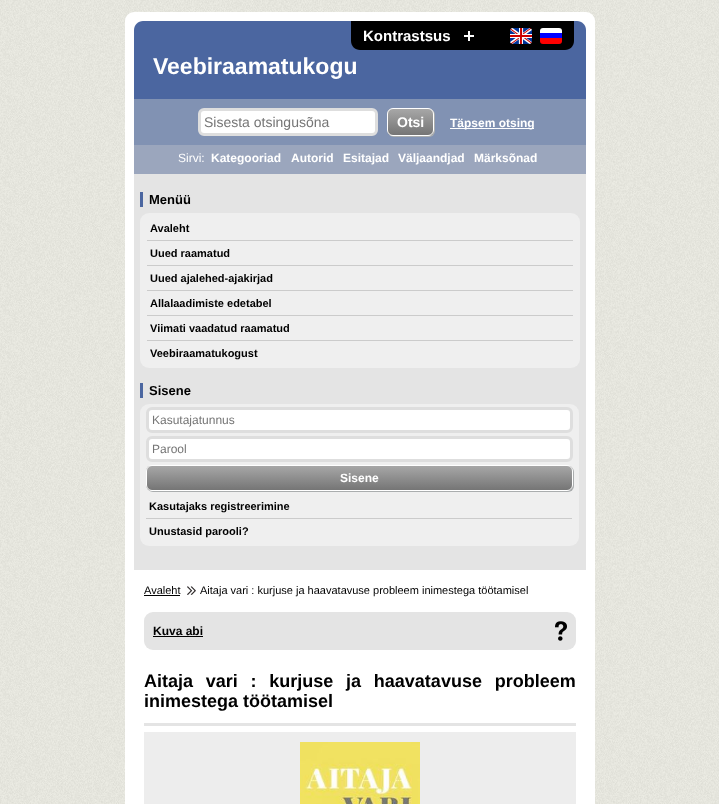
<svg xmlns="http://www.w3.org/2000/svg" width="719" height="804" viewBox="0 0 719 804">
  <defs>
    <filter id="blur1" x="-50%" y="-200%" width="200%" height="500%"><feGaussianBlur stdDeviation="0.5"/></filter>
    <clipPath id="clip1"><rect x="387" y="108" width="47" height="28" rx="6"/></clipPath>
    <linearGradient id="g1" gradientUnits="userSpaceOnUse" x1="411" y1="109" x2="411" y2="135"><stop offset="0" stop-color="#a7a7a7"/><stop offset="1" stop-color="#757575"/></linearGradient>
    <clipPath id="clip2"><rect x="146" y="465" width="427" height="26" rx="6"/></clipPath>
    <linearGradient id="g2" gradientUnits="userSpaceOnUse" x1="360" y1="466" x2="360" y2="490"><stop offset="0" stop-color="#a7a7a7"/><stop offset="1" stop-color="#757575"/></linearGradient>
  </defs>
  <rect width="100%" height="100%" fill="#ffffff"/>
  <image x="0" y="0" width="719" height="12" href="img1.png"/>
  <image x="0" y="12" width="719" height="792" href="img2.png"/>
  <rect x="125" y="12" width="470" height="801" rx="9" fill="#ffffff"/>
  <path d="M143 21H577C582 21 586 25 586 30V99H134V30C134 25 138 21 143 21Z" fill="#4b66a0"/>
  <path d="M351 21H574V41C574 46 570 50 565 50H360C355 50 351 46 351 41Z" fill="#000000"/>
  <text x="363" y="41" font-family="Liberation Sans" font-size="15" font-weight="bold" fill="#ffffff">Kontrastsus</text>
  <image x="464" y="31" width="10" height="10" href="img3.png"/>
  <image x="510" y="28" width="22" height="16" href="img4.png"/>
  <image x="540" y="28" width="22" height="16" href="img5.png"/>
  <text x="153" y="74" font-family="Liberation Sans" font-size="23" font-weight="bold" fill="#ffffff">Veebiraamatukogu</text>
  <rect x="134" y="99" width="452" height="46" fill="#8192b3"/>
  <rect x="199.5" y="109.5" width="177" height="25" rx="4.5" fill="#ffffff" stroke="#dedede" stroke-width="3"/>
  <text x="204" y="127" font-family="Liberation Sans" font-size="14" fill="#757575">Sisesta otsingusõna</text>
  <rect x="388" y="109" width="47" height="28" rx="6" fill="#aaadae" filter="url(#blur1)"/>
  <g clip-path="url(#clip1)">
    <rect x="387" y="109" width="47" height="26" fill="url(#g1)"/>
  </g>
  <rect x="387.5" y="108.5" width="46" height="27" rx="5.5" fill="none" stroke="#ffffff"/>
  <text x="397" y="127" font-family="Liberation Sans" font-size="14" font-weight="bold" fill="#ffffff">Otsi</text>
  <rect x="450" y="128" width="84" height="1" fill="#ffffff"/>
  <text x="450" y="127" font-family="Liberation Sans" font-size="12" font-weight="bold" fill="#ffffff">Täpsem otsing</text>
  <rect x="134" y="145" width="452" height="29" fill="#9ba6bd"/>
  <text x="178" y="162" font-family="Liberation Sans" font-size="12" fill="#ffffff">Sirvi:</text>
  <text x="211" y="162" font-family="Liberation Sans" font-size="12" font-weight="bold" fill="#ffffff">Kategooriad</text>
  <text x="291" y="162" font-family="Liberation Sans" font-size="12" font-weight="bold" fill="#ffffff">Autorid</text>
  <text x="343" y="162" font-family="Liberation Sans" font-size="12" font-weight="bold" fill="#ffffff">Esitajad</text>
  <text x="398" y="162" font-family="Liberation Sans" font-size="12" font-weight="bold" fill="#ffffff">Väljaandjad</text>
  <text x="474" y="162" font-family="Liberation Sans" font-size="12" font-weight="bold" fill="#ffffff">Märksõnad</text>
  <rect x="134" y="174" width="452" height="396" fill="#e4e4e4"/>
  <rect x="140" y="192" width="3" height="15" fill="#4b66a0"/>
  <text x="149" y="204" font-family="Liberation Sans" font-size="13" font-weight="bold" fill="#000000">Menüü</text>
  <rect x="140" y="213" width="440" height="155" rx="9" fill="#efefef"/>
  <rect x="147" y="240" width="426" height="1" fill="#cbcbcb"/>
  <text x="150" y="232" font-family="Liberation Sans" font-size="11" font-weight="bold" fill="#000000">Avaleht</text>
  <rect x="147" y="265" width="426" height="1" fill="#cbcbcb"/>
  <text x="150" y="257" font-family="Liberation Sans" font-size="11" font-weight="bold" fill="#000000">Uued raamatud</text>
  <rect x="147" y="290" width="426" height="1" fill="#cbcbcb"/>
  <text x="150" y="282" font-family="Liberation Sans" font-size="11" font-weight="bold" fill="#000000">Uued ajalehed-ajakirjad</text>
  <rect x="147" y="315" width="426" height="1" fill="#cbcbcb"/>
  <text x="150" y="307" font-family="Liberation Sans" font-size="11" font-weight="bold" fill="#000000">Allalaadimiste edetabel</text>
  <rect x="147" y="340" width="426" height="1" fill="#cbcbcb"/>
  <text x="150" y="332" font-family="Liberation Sans" font-size="11" font-weight="bold" fill="#000000">Viimati vaadatud raamatud</text>
  <text x="150" y="357" font-family="Liberation Sans" font-size="11" font-weight="bold" fill="#000000">Veebiraamatukogust</text>
  <text x="144" y="594" font-family="Liberation Sans" font-size="11" fill="#000000">Avaleht</text>
  <rect x="144" y="595" width="36" height="1" fill="#000000"/>
  <image x="187" y="586" width="9" height="9" href="img6.png"/>
  <text x="200" y="594" font-family="Liberation Sans" font-size="11" fill="#000000">Aitaja vari : kurjuse ja haavatavuse probleem inimestega töötamisel</text>
  <rect x="144" y="612" width="432" height="38" rx="9" fill="#e4e4e4"/>
  <image x="555" y="621" width="12" height="20" href="img7.png"/>
  <text x="153" y="635" font-family="Liberation Sans" font-size="12" font-weight="bold" fill="#000000">Kuva abi</text>
  <rect x="153" y="636" width="50" height="1" fill="#000000"/>
  <rect x="144" y="723" width="432" height="3" fill="#e4e4e4"/>
  <text x="144" y="687" word-spacing="7.75" font-family="Liberation Sans" font-size="18" font-weight="bold" fill="#000000">Aitaja vari : kurjuse ja haavatavuse probleem</text>
  <text x="144" y="707" font-family="Liberation Sans" font-size="18" font-weight="bold" fill="#000000">inimestega töötamisel</text>
  <rect x="144" y="732" width="432" height="72" fill="#ededed"/>
  <image x="300" y="742" width="120" height="62" href="img8.png"/>
  <rect x="140" y="383" width="3" height="15" fill="#4b66a0"/>
  <text x="149" y="395" font-family="Liberation Sans" font-size="13" font-weight="bold" fill="#000000">Sisene</text>
  <rect x="140" y="404" width="439" height="142" rx="9" fill="#efefef"/>
  <rect x="147.5" y="408.5" width="424" height="23" rx="4.5" fill="#ffffff" stroke="#dedede" stroke-width="3"/>
  <text x="152" y="424" font-family="Liberation Sans" font-size="12" fill="#757575">Kasutajatunnus</text>
  <rect x="147.5" y="437.5" width="424" height="23" rx="4.5" fill="#ffffff" stroke="#dedede" stroke-width="3"/>
  <text x="152" y="453" font-family="Liberation Sans" font-size="12" fill="#757575">Parool</text>
  <rect x="147" y="466" width="427" height="26" rx="6" fill="#aaadae" filter="url(#blur1)"/>
  <g clip-path="url(#clip2)">
    <rect x="146" y="466" width="427" height="24" fill="url(#g2)"/>
  </g>
  <rect x="146.5" y="465.5" width="426" height="25" rx="5.5" fill="none" stroke="#ffffff"/>
  <text x="340" y="482" font-family="Liberation Sans" font-size="12" font-weight="bold" fill="#ffffff">Sisene</text>
  <rect x="146" y="518" width="426" height="1" fill="#cbcbcb"/>
  <text x="149" y="510" font-family="Liberation Sans" font-size="11" font-weight="bold" fill="#000000">Kasutajaks registreerimine</text>
  <text x="149" y="535" font-family="Liberation Sans" font-size="11" font-weight="bold" fill="#000000">Unustasid parooli?</text>
</svg>
